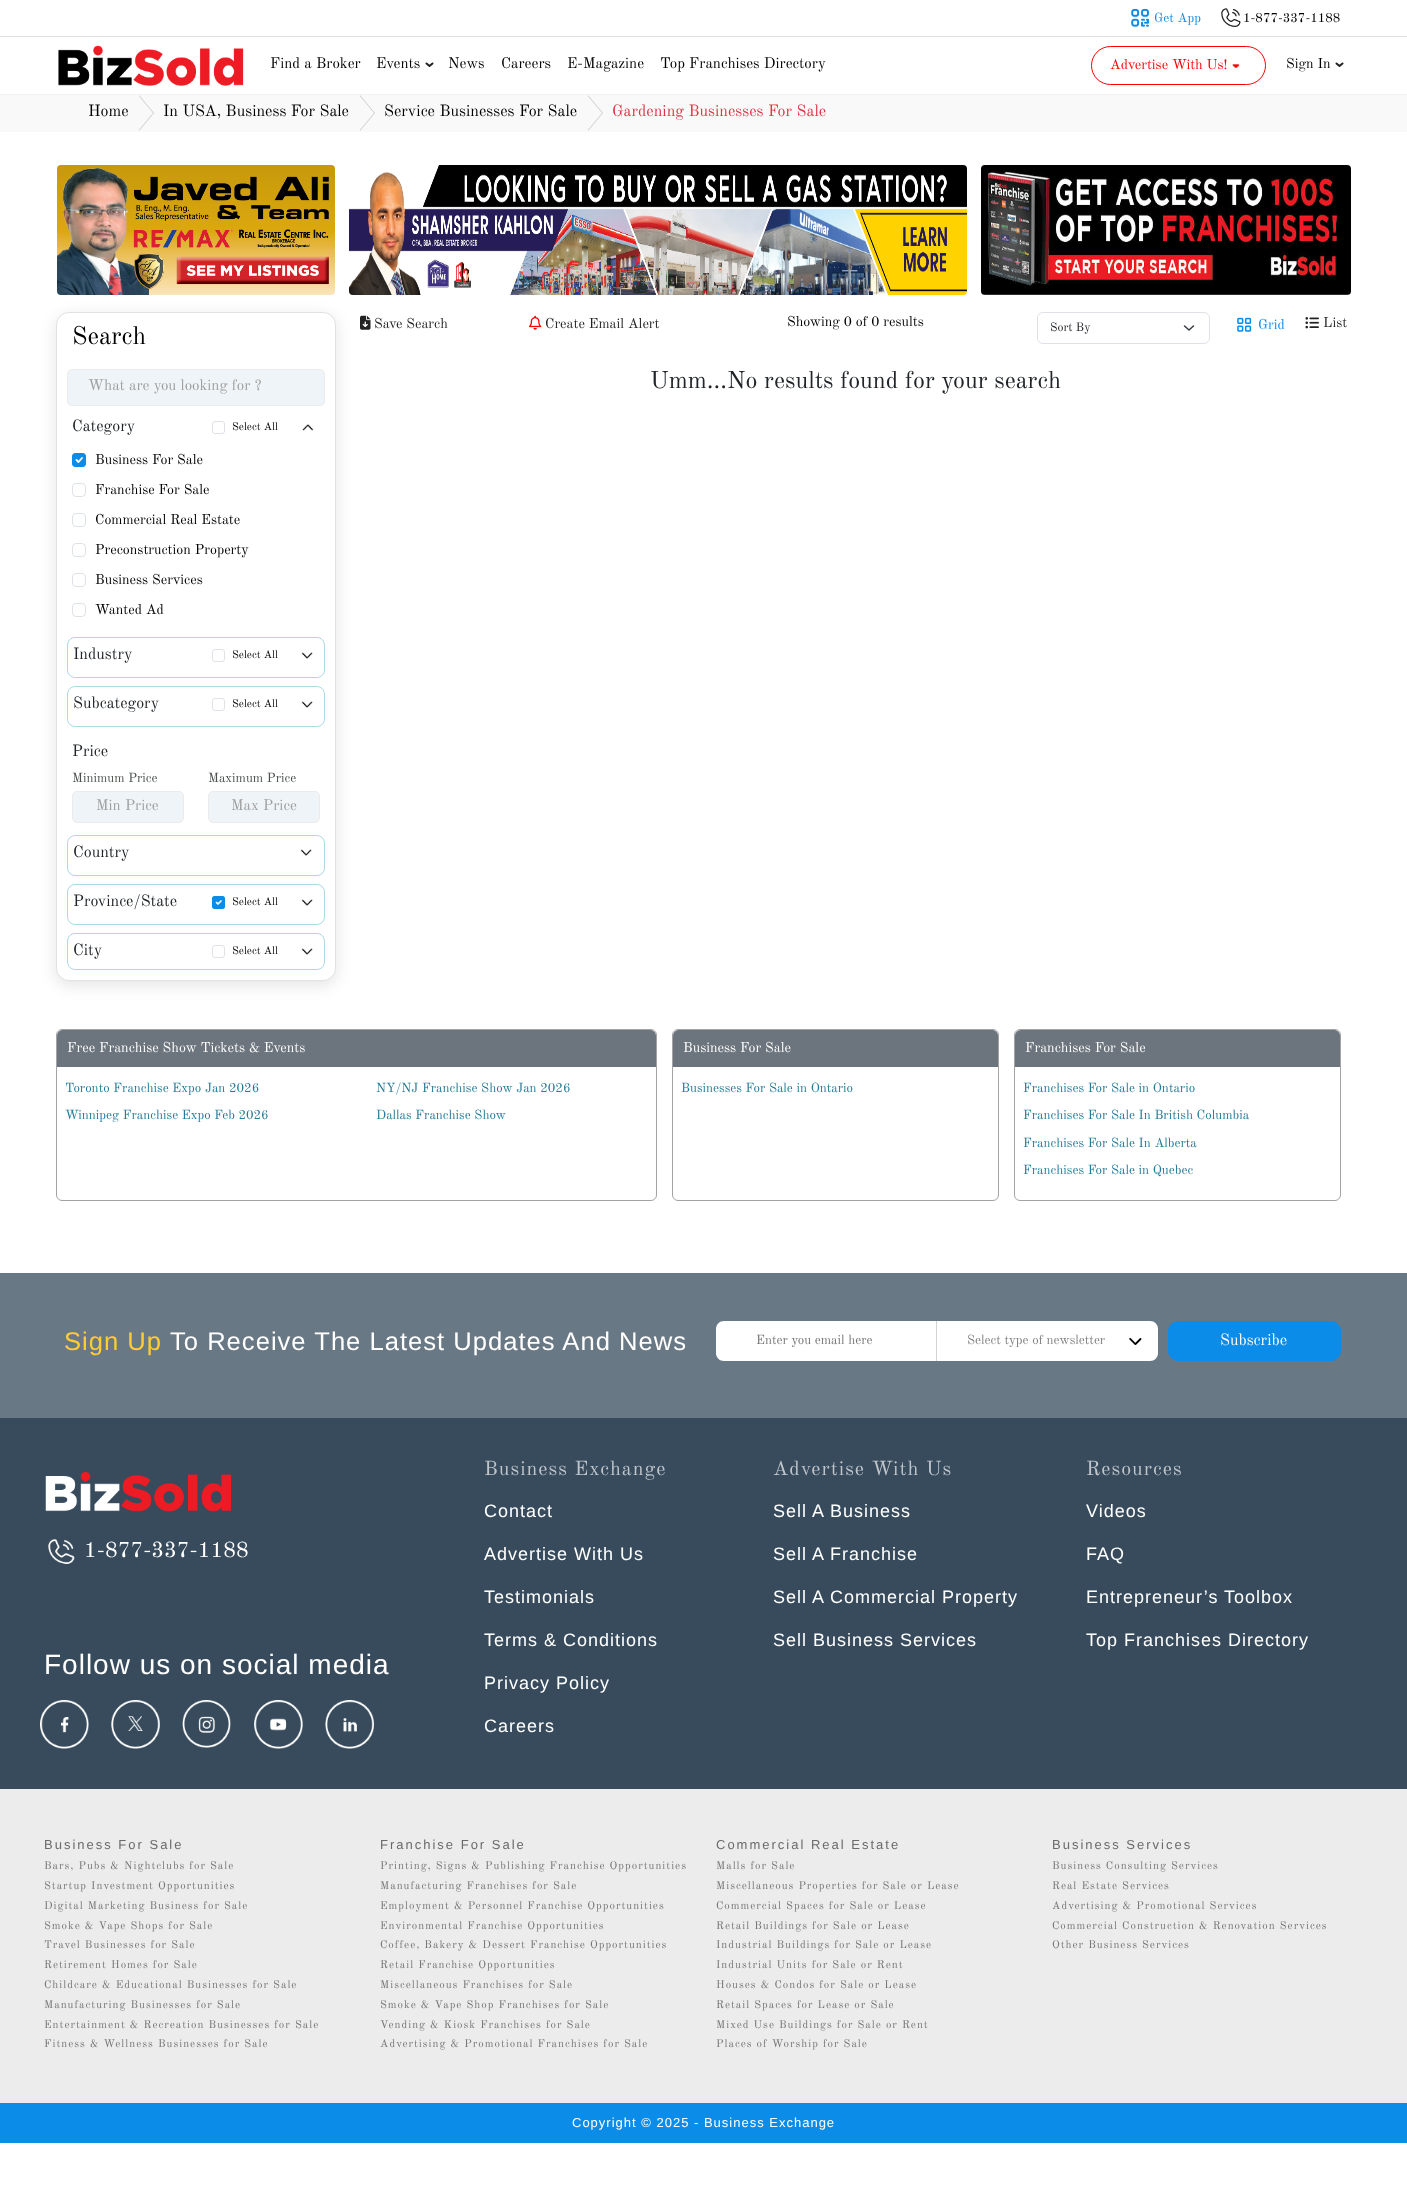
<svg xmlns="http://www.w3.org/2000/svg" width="1407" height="2206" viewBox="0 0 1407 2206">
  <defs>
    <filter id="blur1" x="-50%" y="-200%" width="200%" height="500%"><feGaussianBlur stdDeviation="8"/></filter>
  </defs>
  <rect width="100%" height="100%" fill="#ffffff"/>
  <rect x="0" y="36" width="1407" height="1" fill="#e0e0e0"/>
  <image x="1131" y="8" width="18" height="19" href="img1.png"/>
  <text x="1154" y="22" font-family="Old Standard TT" font-size="13" fill="#0c8ce9">Get App</text>
  <image x="1221" y="8" width="20" height="19" href="img2.png"/>
  <text x="1243" y="22" font-family="Old Standard TT" font-size="13" fill="#000000">1-877-337-1188</text>
  <rect x="0" y="94" width="1407" height="1" fill="#f2f2f2"/>
  <image x="58" y="45" width="186" height="41" href="img3.png"/>
  <text x="270" y="68" font-family="Old Standard TT" font-size="15" fill="#000000">Find a Broker</text>
  <text x="376" y="68" font-family="Old Standard TT" font-size="15" fill="#000000">Events</text>
  <path d="M432.5 63.5L429.5 66L426.5 63.5" fill="none" stroke="#222222" stroke-width="2" stroke-linecap="round" stroke-linejoin="round"/>
  <text x="448" y="68" font-family="Old Standard TT" font-size="15" fill="#000000">News</text>
  <text x="501" y="68" font-family="Old Standard TT" font-size="15" fill="#000000">Careers</text>
  <text x="567" y="68" font-family="Old Standard TT" font-size="15" fill="#000000">E-Magazine</text>
  <text x="660" y="68" font-family="Old Standard TT" font-size="15" fill="#000000">Top Franchises Directory</text>
  <rect x="1091.5" y="46.5" width="174" height="38" rx="19" fill="none" stroke="#ff0000"/>
  <text x="1110" y="69" font-family="Old Standard TT" font-size="14" fill="#ff0000">Advertise With Us!</text>
  <image x="1232" y="64" width="8" height="4" href="img4.png"/>
  <text x="1286" y="68" font-family="Old Standard TT" font-size="14" fill="#000000">Sign In</text>
  <path d="M1342.5 63.5L1339.5 66L1336.5 63.5" fill="none" stroke="#222222" stroke-width="2" stroke-linecap="round" stroke-linejoin="round"/>
  <rect x="0" y="95" width="1407" height="37" fill="#f9f9f9"/>
  <path d="M139 131V95L154 113Z" fill="#cccccc"/>
  <path d="M138 131V95L153 113Z" fill="#f9f9f9"/>
  <text x="88" y="116" font-family="Old Standard TT" font-size="16" fill="#000000">Home</text>
  <path d="M360 131V95L375 113Z" fill="#cccccc"/>
  <path d="M359 131V95L374 113Z" fill="#f9f9f9"/>
  <text x="163" y="116" font-family="Old Standard TT" font-size="16" fill="#000000">In USA, Business For Sale</text>
  <path d="M588 131V95L603 113Z" fill="#cccccc"/>
  <path d="M587 131V95L602 113Z" fill="#f9f9f9"/>
  <text x="384" y="116" font-family="Old Standard TT" font-size="16" fill="#000000">Service Businesses For Sale</text>
  <text x="612" y="116" font-family="Old Standard TT" font-size="16" fill="#dc3545">Gardening Businesses For Sale</text>
  <image x="57" y="165" width="278" height="130" href="img5.png"/>
  <image x="349" y="165" width="618" height="130" href="img6.png"/>
  <image x="981" y="165" width="370" height="130" href="img7.png"/>
  <rect x="56" y="316" width="280" height="669" rx="13" fill="#000000" fill-opacity="0.11" filter="url(#blur1)"/>
  <rect x="56.5" y="312.5" width="279" height="668" rx="12.5" fill="#ffffff" stroke="#e2e2e2"/>
  <text x="72" y="344" font-family="Old Standard TT" font-size="25" fill="#000000">Search</text>
  <rect x="67.5" y="369.5" width="257" height="36" rx="4.5" fill="#eff4f8" stroke="#ebebeb"/>
  <text x="88" y="390" font-family="Old Standard TT" font-size="15" fill="#9e9e9e">What are you looking for ?</text>
  <text x="72" y="431" font-family="Old Standard TT" font-size="16" fill="#212529">Category</text>
  <rect x="212.5" y="421.5" width="12" height="12" rx="2.5" fill="none" stroke="#dee2e6"/>
  <text x="232" y="430" font-family="Old Standard TT" font-size="11" fill="#000000">Select All</text>
  <image x="302" y="424" width="12" height="7" href="img8.png"/>
  <rect x="72" y="453" width="14" height="14" rx="4" fill="#0c8ce9"/>
  <path d="M76.5 460L78.5 462L82 458" fill="none" stroke="#ffffff" stroke-width="1.8" stroke-linecap="round" stroke-linejoin="round"/>
  <rect x="72.5" y="453.5" width="13" height="13" rx="3.5" fill="none" stroke="#0c8ce9"/>
  <text x="95" y="464" font-family="Old Standard TT" font-size="14" fill="#000000">Business For Sale</text>
  <rect x="72.5" y="483.5" width="13" height="13" rx="3.5" fill="none" stroke="#dee2e6"/>
  <text x="95" y="494" font-family="Old Standard TT" font-size="14" fill="#000000">Franchise For Sale</text>
  <rect x="72.5" y="513.5" width="13" height="13" rx="3.5" fill="none" stroke="#dee2e6"/>
  <text x="95" y="524" font-family="Old Standard TT" font-size="14" fill="#000000">Commercial Real Estate</text>
  <rect x="72.5" y="543.5" width="13" height="13" rx="3.5" fill="none" stroke="#dee2e6"/>
  <text x="95" y="554" font-family="Old Standard TT" font-size="14" fill="#000000">Preconstruction Property</text>
  <rect x="72.5" y="573.5" width="13" height="13" rx="3.5" fill="none" stroke="#dee2e6"/>
  <text x="95" y="584" font-family="Old Standard TT" font-size="14" fill="#000000">Business Services</text>
  <rect x="72.5" y="603.5" width="13" height="13" rx="3.5" fill="none" stroke="#dee2e6"/>
  <text x="95" y="614" font-family="Old Standard TT" font-size="14" fill="#000000">Wanted Ad</text>
  <rect x="67.5" y="637.5" width="257" height="40" rx="7.5" fill="none" stroke="#add8e6"/>
  <text x="73" y="659" font-family="Old Standard TT" font-size="16" fill="#212529">Industry</text>
  <rect x="212.5" y="649.5" width="12" height="12" rx="2.5" fill="none" stroke="#dee2e6"/>
  <text x="232" y="658" font-family="Old Standard TT" font-size="11" fill="#000000">Select All</text>
  <image x="301" y="652" width="12" height="7" href="img9.png"/>
  <rect x="67.5" y="686.5" width="257" height="40" rx="7.5" fill="none" stroke="#add8e6"/>
  <text x="73" y="708" font-family="Old Standard TT" font-size="16" fill="#212529">Subcategory</text>
  <rect x="212.5" y="698.5" width="12" height="12" rx="2.5" fill="none" stroke="#dee2e6"/>
  <text x="232" y="707" font-family="Old Standard TT" font-size="11" fill="#000000">Select All</text>
  <image x="301" y="701" width="12" height="7" href="img9.png"/>
  <text x="72" y="756" font-family="Old Standard TT" font-size="16" fill="#212529">Price</text>
  <text x="72" y="782" font-family="Old Standard TT" font-size="13" fill="#4a504b">Minimum Price</text>
  <rect x="72.5" y="791.5" width="111" height="31" rx="4.5" fill="#eff4f8" stroke="#ebebeb"/>
  <text x="96" y="810" font-family="Old Standard TT" font-size="15" fill="#9e9e9e">Min Price</text>
  <text x="208" y="782" font-family="Old Standard TT" font-size="13" fill="#4a504b">Maximum Price</text>
  <rect x="208.5" y="791.5" width="111" height="31" rx="4.5" fill="#eff4f8" stroke="#ebebeb"/>
  <text x="231" y="810" font-family="Old Standard TT" font-size="15" fill="#9e9e9e">Max Price</text>
  <rect x="67.5" y="835.5" width="257" height="40" rx="7.5" fill="none" stroke="#add8e6"/>
  <text x="73" y="857" font-family="Old Standard TT" font-size="16" fill="#212529">Country</text>
  <image x="300" y="849" width="12" height="7" href="img10.png"/>
  <rect x="67.5" y="884.5" width="257" height="40" rx="7.5" fill="none" stroke="#add8e6"/>
  <text x="73" y="906" font-family="Old Standard TT" font-size="16" fill="#212529">Province/State</text>
  <rect x="212" y="896" width="13" height="13" rx="3" fill="#0c8ce9"/>
  <path d="M216.5 902.5L218 904L221 901" fill="none" stroke="#ffffff" stroke-width="1.7" stroke-linecap="round" stroke-linejoin="round"/>
  <rect x="212.5" y="896.5" width="12" height="12" rx="2.5" fill="none" stroke="#0c8ce9"/>
  <text x="232" y="905" font-family="Old Standard TT" font-size="11" fill="#000000">Select All</text>
  <image x="301" y="899" width="12" height="7" href="img9.png"/>
  <rect x="67.5" y="933.5" width="257" height="36" rx="7.5" fill="none" stroke="#add8e6"/>
  <text x="73" y="955" font-family="Old Standard TT" font-size="16" fill="#212529">City</text>
  <rect x="212.5" y="945.5" width="12" height="12" rx="2.5" fill="none" stroke="#dee2e6"/>
  <text x="232" y="954" font-family="Old Standard TT" font-size="11" fill="#000000">Select All</text>
  <image x="301" y="948" width="12" height="7" href="img9.png"/>
  <image x="360" y="315" width="11" height="15" href="img11.png"/>
  <text x="374" y="328" font-family="Old Standard TT" font-size="14" fill="#222222">Save Search</text>
  <image x="529" y="315" width="13" height="15" href="img12.png"/>
  <text x="545" y="328" font-family="Old Standard TT" font-size="14" fill="#222222">Create Email Alert</text>
  <text x="787" y="326" font-family="Old Standard TT" font-size="14" fill="#000000">Showing 0 of 0 results</text>
  <path d="M1184.5 326L1189 330L1193.5 326" fill="none" stroke="#343a40" stroke-width="1.5" stroke-linecap="round" stroke-linejoin="round"/>
  <rect x="1037.5" y="312.5" width="172" height="31" rx="5.5" fill="none" stroke="#dee2e6"/>
  <text x="1050" y="331" font-family="Old Standard TT" font-size="12" fill="#212529">Sort By</text>
  <image x="1237" y="317" width="15" height="15" href="img13.png"/>
  <text x="1258" y="329" font-family="Old Standard TT" font-size="14" fill="#0c8ce9">Grid</text>
  <image x="1305" y="317" width="14" height="12" href="img14.png"/>
  <text x="1323" y="327" font-family="Old Standard TT" font-size="14" fill="#222222">List</text>
  <text x="650" y="388" font-family="Old Standard TT" font-size="24" fill="#212529">Umm...No results found for your search</text>
  <rect x="56.5" y="1029.5" width="600" height="171" rx="5.5" fill="none" stroke="#a3a3a3"/>
  <path d="M63 1030H650C653.5 1030 656 1032.5 656 1036V1067H57V1036C57 1032.5 59.5 1030 63 1030Z" fill="#6c757d"/>
  <text x="67" y="1052" font-family="Old Standard TT" font-size="14" fill="#ffffff">Free Franchise Show Tickets &amp; Events</text>
  <text x="65" y="1092" font-family="Old Standard TT" font-size="13" fill="#237b98">Toronto Franchise Expo Jan 2026</text>
  <text x="376" y="1092" font-family="Old Standard TT" font-size="13" fill="#237b98">NY/NJ Franchise Show Jan 2026</text>
  <text x="65" y="1119" font-family="Old Standard TT" font-size="13" fill="#237b98">Winnipeg Franchise Expo Feb 2026</text>
  <text x="376" y="1119" font-family="Old Standard TT" font-size="13" fill="#237b98">Dallas Franchise Show</text>
  <rect x="672.5" y="1029.5" width="326" height="171" rx="5.5" fill="none" stroke="#a3a3a3"/>
  <path d="M679 1030H992C995.5 1030 998 1032.5 998 1036V1067H673V1036C673 1032.5 675.5 1030 679 1030Z" fill="#6c757d"/>
  <text x="683" y="1052" font-family="Old Standard TT" font-size="14" fill="#ffffff">Business For Sale</text>
  <text x="681" y="1092" font-family="Old Standard TT" font-size="13" fill="#237b98">Businesses For Sale in Ontario</text>
  <rect x="1014.5" y="1029.5" width="326" height="171" rx="5.5" fill="none" stroke="#a3a3a3"/>
  <path d="M1021 1030H1334C1337.5 1030 1340 1032.5 1340 1036V1067H1015V1036C1015 1032.5 1017.5 1030 1021 1030Z" fill="#6c757d"/>
  <text x="1025" y="1052" font-family="Old Standard TT" font-size="14" fill="#ffffff">Franchises For Sale</text>
  <text x="1023" y="1092" font-family="Old Standard TT" font-size="13" fill="#237b98">Franchises For Sale in Ontario</text>
  <text x="1023" y="1119" font-family="Old Standard TT" font-size="13" fill="#237b98">Franchises For Sale In British Columbia</text>
  <text x="1023" y="1147" font-family="Old Standard TT" font-size="13" fill="#237b98">Franchises For Sale In Alberta</text>
  <text x="1023" y="1174" font-family="Old Standard TT" font-size="13" fill="#237b98">Franchises For Sale in Quebec</text>
  <rect x="0" y="1273" width="1407" height="145" fill="#697885"/>
  <text x="64" y="1350" font-family="Liberation Sans" font-size="25.6" letter-spacing="1" fill="#ffcc33">Sign Up</text>
  <text x="170" y="1350" font-family="Liberation Sans" font-size="25.6" letter-spacing="1" fill="#ffffff">To Receive The Latest Updates And News</text>
  <path d="M724 1321H937V1361H724C719.5 1361 716 1357.5 716 1353V1329C716 1324.5 719.5 1321 724 1321Z" fill="#ffffff"/>
  <rect x="936" y="1321" width="1" height="40" fill="#d3d3d3"/>
  <text x="756" y="1344" font-family="Old Standard TT" font-size="13" fill="#757575">Enter you email here</text>
  <path d="M937 1321H1150C1154.5 1321 1158 1324.5 1158 1329V1353C1158 1357.5 1154.5 1361 1150 1361H937Z" fill="#ffffff"/>
  <text x="967" y="1344" font-family="Old Standard TT" font-size="13" fill="#808080">Select type of newsletter</text>
  <image x="1129" y="1338" width="13" height="7" href="img15.png"/>
  <rect x="1168.5" y="1321.5" width="172" height="39" rx="9.5" fill="#0c8ce9" stroke="#0c8ce9"/>
  <text x="1220" y="1345" font-family="Old Standard TT" font-size="16" fill="#ffffff">Subscribe</text>
  <rect x="0" y="1418" width="1407" height="371" fill="#374b5c"/>
  <image x="45" y="1472" width="187" height="40" href="img16.png"/>
  <image x="48" y="1539" width="27" height="25" href="img17.png"/>
  <text x="84" y="1557" font-family="Old Standard TT" font-size="22" fill="#ffffff">1-877-337-1188</text>
  <text x="44" y="1674" font-family="Liberation Sans" font-size="28" letter-spacing="1" fill="#ffffff">Follow us on social media</text>
  <image x="40" y="1700" width="49" height="49" href="img18.png"/>
  <image x="111" y="1700" width="49" height="49" href="img19.png"/>
  <image x="182" y="1700" width="49" height="48" href="img20.png"/>
  <image x="254" y="1700" width="49" height="49" href="img21.png"/>
  <image x="325" y="1700" width="49" height="49" href="img22.png"/>
  <text x="484" y="1475" font-family="Old Standard TT" font-size="20" letter-spacing="1" fill="#bfc5cb">Business Exchange</text>
  <text x="484" y="1517" font-family="Liberation Sans" font-size="18" letter-spacing="1" fill="#ffffff">Contact</text>
  <text x="484" y="1560" font-family="Liberation Sans" font-size="18" letter-spacing="1" fill="#ffffff">Advertise With Us</text>
  <text x="484" y="1603" font-family="Liberation Sans" font-size="18" letter-spacing="1" fill="#ffffff">Testimonials</text>
  <text x="484" y="1646" font-family="Liberation Sans" font-size="18" letter-spacing="1" fill="#ffffff">Terms &amp; Conditions</text>
  <text x="484" y="1689" font-family="Liberation Sans" font-size="18" letter-spacing="1" fill="#ffffff">Privacy Policy</text>
  <text x="484" y="1732" font-family="Liberation Sans" font-size="18" letter-spacing="1" fill="#ffffff">Careers</text>
  <text x="773" y="1475" font-family="Old Standard TT" font-size="20" letter-spacing="1" fill="#bfc5cb">Advertise With Us</text>
  <text x="773" y="1517" font-family="Liberation Sans" font-size="18" letter-spacing="1" fill="#ffffff">Sell A Business</text>
  <text x="773" y="1560" font-family="Liberation Sans" font-size="18" letter-spacing="1" fill="#ffffff">Sell A Franchise</text>
  <text x="773" y="1603" font-family="Liberation Sans" font-size="18" letter-spacing="1" fill="#ffffff">Sell A Commercial Property</text>
  <text x="773" y="1646" font-family="Liberation Sans" font-size="18" letter-spacing="1" fill="#ffffff">Sell Business Services</text>
  <text x="1086" y="1475" font-family="Old Standard TT" font-size="20" letter-spacing="1" fill="#bfc5cb">Resources</text>
  <text x="1086" y="1517" font-family="Liberation Sans" font-size="18" letter-spacing="1" fill="#ffffff">Videos</text>
  <text x="1086" y="1560" font-family="Liberation Sans" font-size="18" letter-spacing="1" fill="#ffffff">FAQ</text>
  <text x="1086" y="1603" font-family="Liberation Sans" font-size="18" letter-spacing="1" fill="#ffffff">Entrepreneur’s Toolbox</text>
  <text x="1086" y="1646" font-family="Liberation Sans" font-size="18" letter-spacing="1" fill="#ffffff">Top Franchises Directory</text>
  <rect x="0" y="1789" width="1407" height="314" fill="#ececec"/>
  <text x="44" y="1849" font-family="Liberation Sans" font-size="13" letter-spacing="2" fill="#6a6a6a">Business For Sale</text>
  <text x="44" y="1869" font-family="Old Standard TT" font-size="11" letter-spacing="1" fill="#757575">Bars, Pubs &amp; Nightclubs for Sale</text>
  <text x="44" y="1889" font-family="Old Standard TT" font-size="11" letter-spacing="1" fill="#757575">Startup Investment Opportunities</text>
  <text x="44" y="1909" font-family="Old Standard TT" font-size="11" letter-spacing="1" fill="#757575">Digital Marketing Business for Sale</text>
  <text x="44" y="1929" font-family="Old Standard TT" font-size="11" letter-spacing="1" fill="#757575">Smoke &amp; Vape Shops for Sale</text>
  <text x="44" y="1948" font-family="Old Standard TT" font-size="11" letter-spacing="1" fill="#757575">Travel Businesses for Sale</text>
  <text x="44" y="1968" font-family="Old Standard TT" font-size="11" letter-spacing="1" fill="#757575">Retirement Homes for Sale</text>
  <text x="44" y="1988" font-family="Old Standard TT" font-size="11" letter-spacing="1" fill="#757575">Childcare &amp; Educational Businesses for Sale</text>
  <text x="44" y="2008" font-family="Old Standard TT" font-size="11" letter-spacing="1" fill="#757575">Manufacturing Businesses for Sale</text>
  <text x="44" y="2028" font-family="Old Standard TT" font-size="11" letter-spacing="1" fill="#757575">Entertainment &amp; Recreation Businesses for Sale</text>
  <text x="44" y="2047" font-family="Old Standard TT" font-size="11" letter-spacing="1" fill="#757575">Fitness &amp; Wellness Businesses for Sale</text>
  <text x="380" y="1849" font-family="Liberation Sans" font-size="13" letter-spacing="2" fill="#6a6a6a">Franchise For Sale</text>
  <text x="380" y="1869" font-family="Old Standard TT" font-size="11" letter-spacing="1" fill="#757575">Printing, Signs &amp; Publishing Franchise Opportunities</text>
  <text x="380" y="1889" font-family="Old Standard TT" font-size="11" letter-spacing="1" fill="#757575">Manufacturing Franchises for Sale</text>
  <text x="380" y="1909" font-family="Old Standard TT" font-size="11" letter-spacing="1" fill="#757575">Employment &amp; Personnel Franchise Opportunities</text>
  <text x="380" y="1929" font-family="Old Standard TT" font-size="11" letter-spacing="1" fill="#757575">Environmental Franchise Opportunities</text>
  <text x="380" y="1948" font-family="Old Standard TT" font-size="11" letter-spacing="1" fill="#757575">Coffee, Bakery &amp; Dessert Franchise Opportunities</text>
  <text x="380" y="1968" font-family="Old Standard TT" font-size="11" letter-spacing="1" fill="#757575">Retail Franchise Opportunities</text>
  <text x="380" y="1988" font-family="Old Standard TT" font-size="11" letter-spacing="1" fill="#757575">Miscellaneous Franchises for Sale</text>
  <text x="380" y="2008" font-family="Old Standard TT" font-size="11" letter-spacing="1" fill="#757575">Smoke &amp; Vape Shop Franchises for Sale</text>
  <text x="380" y="2028" font-family="Old Standard TT" font-size="11" letter-spacing="1" fill="#757575">Vending &amp; Kiosk Franchises for Sale</text>
  <text x="380" y="2047" font-family="Old Standard TT" font-size="11" letter-spacing="1" fill="#757575">Advertising &amp; Promotional Franchises for Sale</text>
  <text x="716" y="1849" font-family="Liberation Sans" font-size="13" letter-spacing="2" fill="#6a6a6a">Commercial Real Estate</text>
  <text x="716" y="1869" font-family="Old Standard TT" font-size="11" letter-spacing="1" fill="#757575">Malls for Sale</text>
  <text x="716" y="1889" font-family="Old Standard TT" font-size="11" letter-spacing="1" fill="#757575">Miscellaneous Properties for Sale or Lease</text>
  <text x="716" y="1909" font-family="Old Standard TT" font-size="11" letter-spacing="1" fill="#757575">Commercial Spaces for Sale or Lease</text>
  <text x="716" y="1929" font-family="Old Standard TT" font-size="11" letter-spacing="1" fill="#757575">Retail Buildings for Sale or Lease</text>
  <text x="716" y="1948" font-family="Old Standard TT" font-size="11" letter-spacing="1" fill="#757575">Industrial Buildings for Sale or Lease</text>
  <text x="716" y="1968" font-family="Old Standard TT" font-size="11" letter-spacing="1" fill="#757575">Industrial Units for Sale or Rent</text>
  <text x="716" y="1988" font-family="Old Standard TT" font-size="11" letter-spacing="1" fill="#757575">Houses &amp; Condos for Sale or Lease</text>
  <text x="716" y="2008" font-family="Old Standard TT" font-size="11" letter-spacing="1" fill="#757575">Retail Spaces for Lease or Sale</text>
  <text x="716" y="2028" font-family="Old Standard TT" font-size="11" letter-spacing="1" fill="#757575">Mixed Use Buildings for Sale or Rent</text>
  <text x="716" y="2047" font-family="Old Standard TT" font-size="11" letter-spacing="1" fill="#757575">Places of Worship for Sale</text>
  <text x="1052" y="1849" font-family="Liberation Sans" font-size="13" letter-spacing="2" fill="#6a6a6a">Business Services</text>
  <text x="1052" y="1869" font-family="Old Standard TT" font-size="11" letter-spacing="1" fill="#757575">Business Consulting Services</text>
  <text x="1052" y="1889" font-family="Old Standard TT" font-size="11" letter-spacing="1" fill="#757575">Real Estate Services</text>
  <text x="1052" y="1909" font-family="Old Standard TT" font-size="11" letter-spacing="1" fill="#757575">Advertising &amp; Promotional Services</text>
  <text x="1052" y="1929" font-family="Old Standard TT" font-size="11" letter-spacing="1" fill="#757575">Commercial Construction &amp; Renovation Services</text>
  <text x="1052" y="1948" font-family="Old Standard TT" font-size="11" letter-spacing="1" fill="#757575">Other Business Services</text>
  <rect x="0" y="2103" width="1407" height="40" fill="#0c8ce9"/>
  <text x="572" y="2127" font-family="Liberation Sans" font-size="13" letter-spacing="1" fill="#ffffff">Copyright © 2025 - Business Exchange</text>
</svg>
